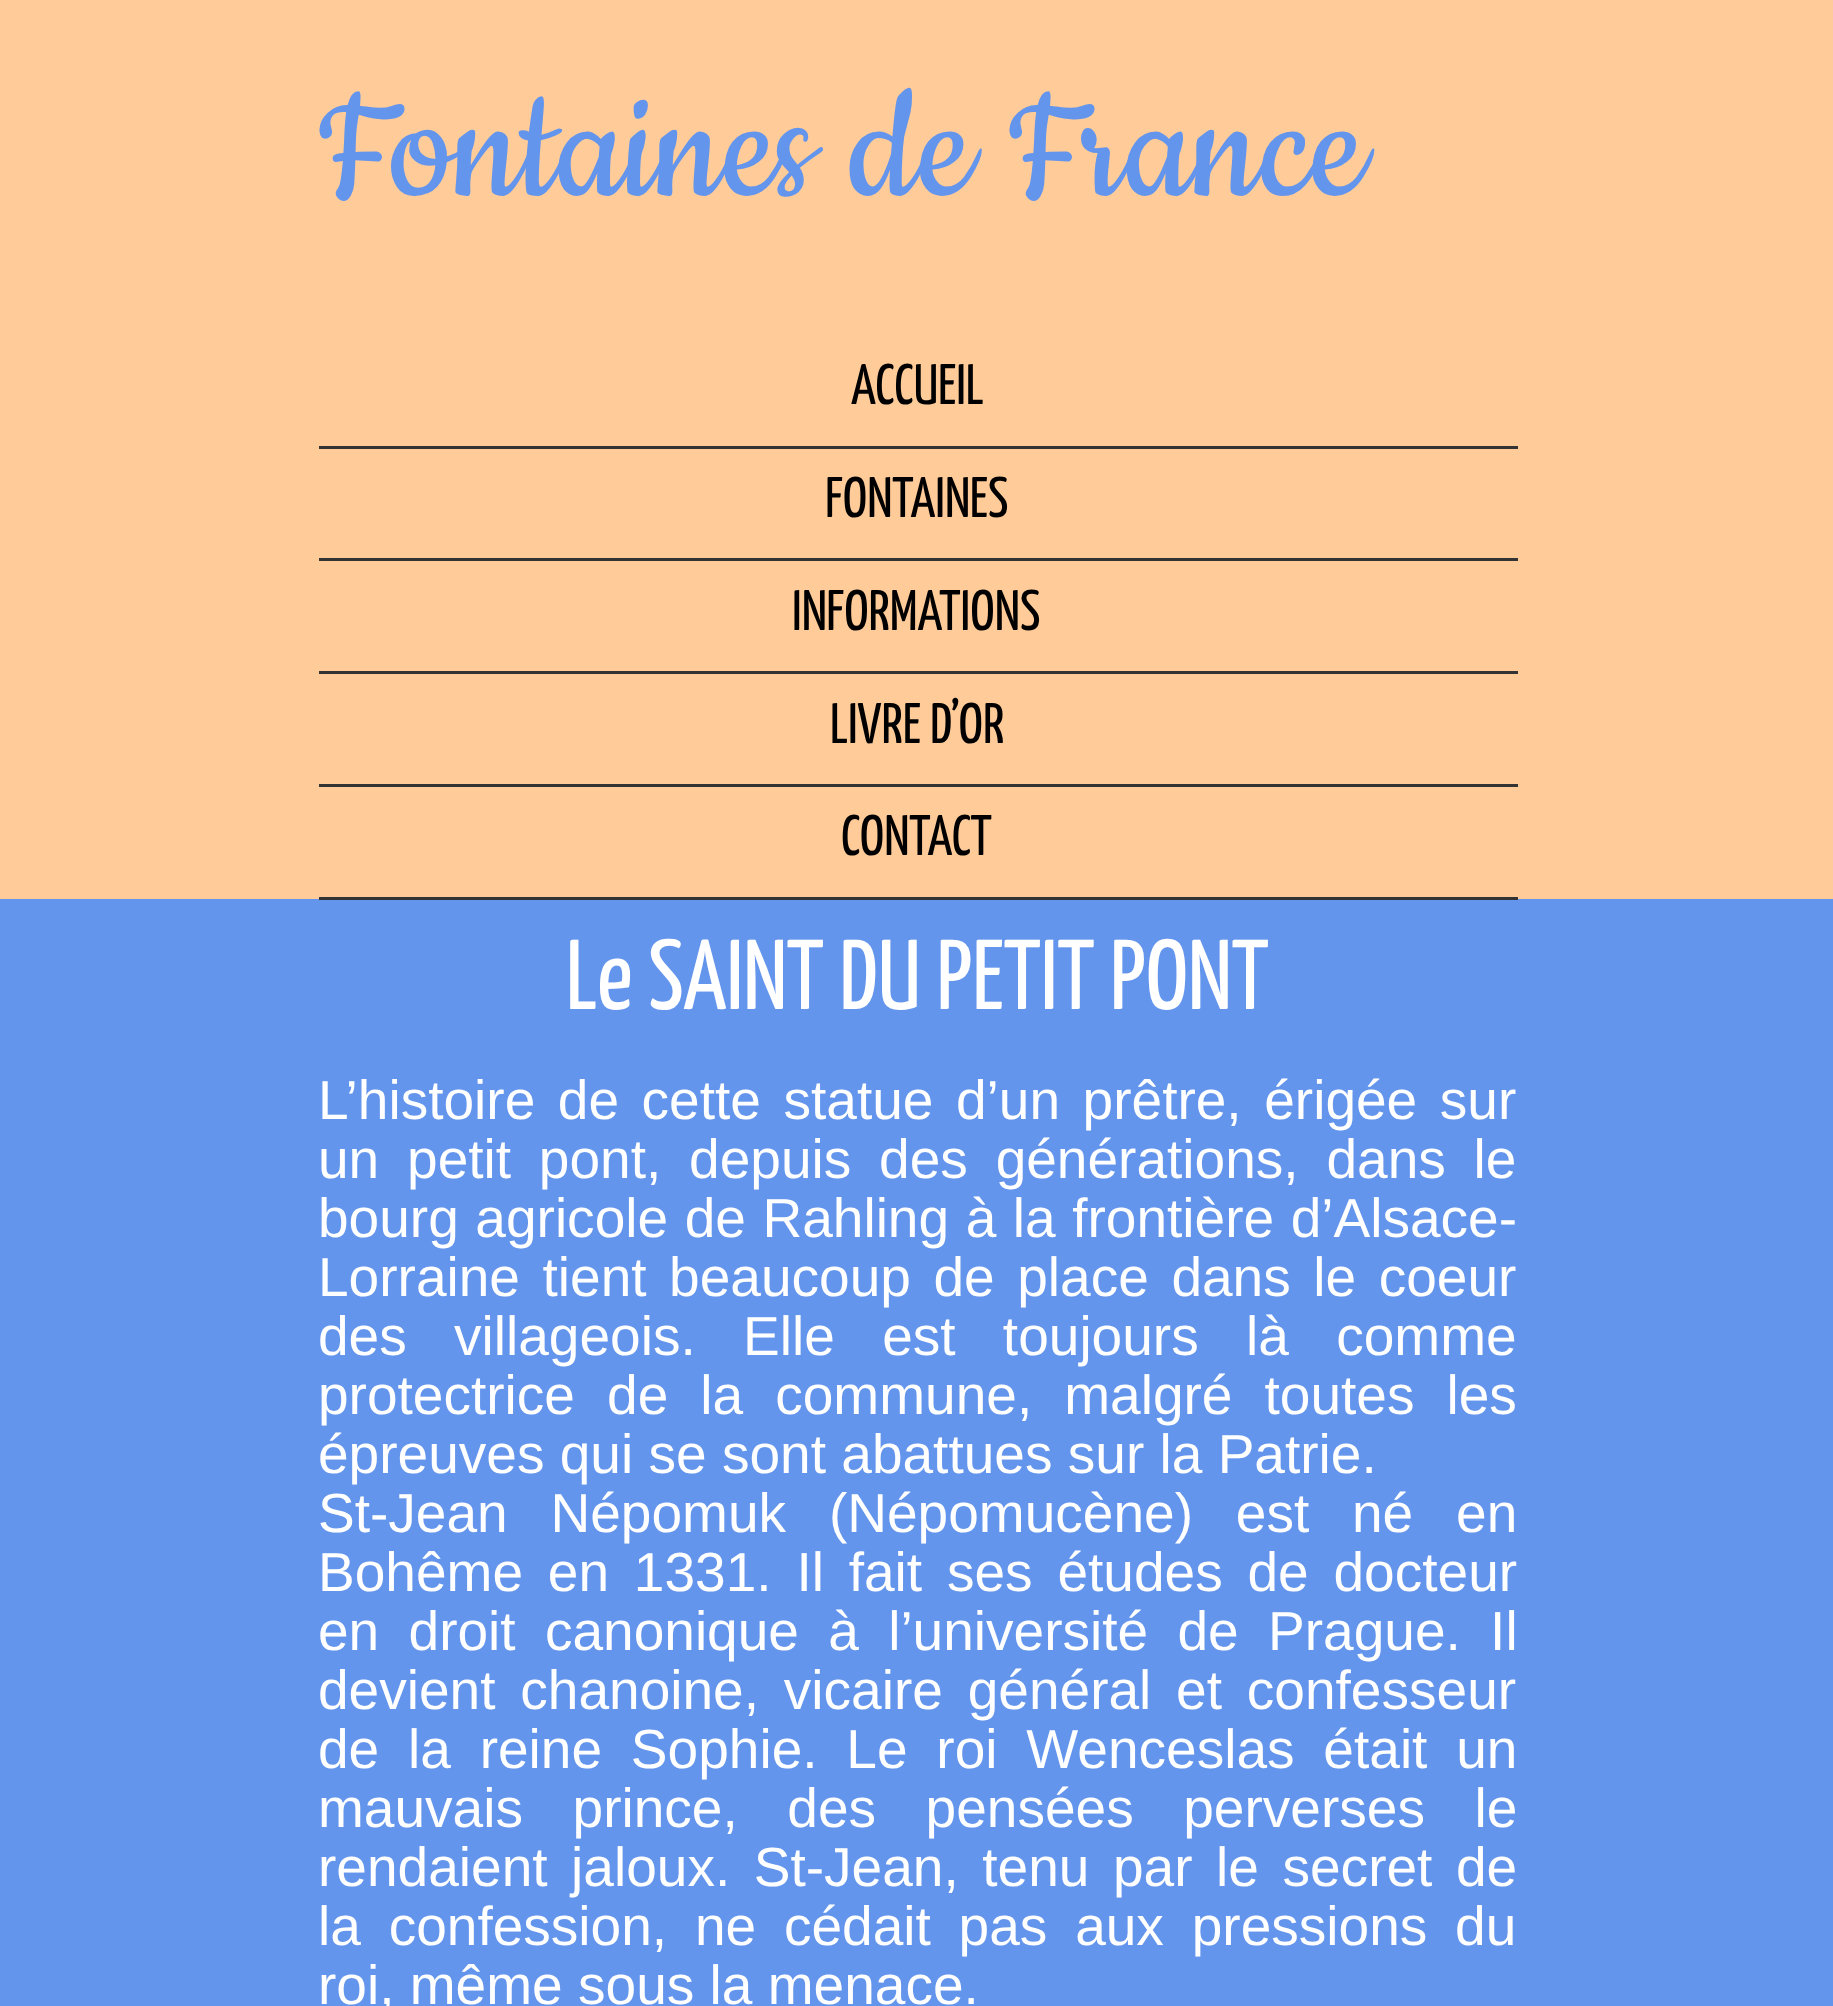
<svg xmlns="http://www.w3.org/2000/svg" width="1833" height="2006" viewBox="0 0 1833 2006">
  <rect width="100%" height="100%" fill="#6495ed"/>
  <rect x="0" y="0" width="1833" height="899" fill="#ffcc99"/>
  <text x="318" y="195" font-family="Cookie" font-size="178.75" fill="#6495ed">Fontaines de France</text>
  <rect x="319" y="446" width="1199" height="3" fill="#333333"/>
  <text x="851" y="404" font-family="Yanone Kaffeesatz" font-size="57" fill="#000000">ACCUEIL</text>
  <rect x="319" y="558" width="1199" height="3" fill="#333333"/>
  <text x="825" y="517" font-family="Yanone Kaffeesatz" font-size="57" fill="#000000">FONTAINES</text>
  <rect x="319" y="671" width="1199" height="3" fill="#333333"/>
  <text x="792" y="630" font-family="Yanone Kaffeesatz" font-size="57" fill="#000000">INFORMATIONS</text>
  <rect x="319" y="784" width="1199" height="3" fill="#333333"/>
  <text x="830" y="743" font-family="Yanone Kaffeesatz" font-size="57" fill="#000000">LIVRE D’OR</text>
  <rect x="319" y="897" width="1199" height="3" fill="#333333"/>
  <text x="841" y="855" font-family="Yanone Kaffeesatz" font-size="57" fill="#000000">CONTACT</text>
  <text x="566" y="1009" font-family="Yanone Kaffeesatz" font-size="99" fill="#ffffff">Le SAINT DU PETIT PONT</text>
  <text x="318" y="1119" word-spacing="7.25" font-family="Liberation Sans" font-size="55.05" fill="#ffffff">L’histoire de cette statue d’un prêtre, érigée sur</text>
  <text x="318" y="1178" word-spacing="12.5" font-family="Liberation Sans" font-size="55.05" fill="#ffffff">un petit pont, depuis des générations, dans le</text>
  <text x="318" y="1237" word-spacing="1.25" font-family="Liberation Sans" font-size="55.05" fill="#ffffff">bourg agricole de Rahling à la frontière d’Alsace-</text>
  <text x="318" y="1296" word-spacing="7.25" font-family="Liberation Sans" font-size="55.05" fill="#ffffff">Lorraine tient beaucoup de place dans le coeur</text>
  <text x="318" y="1355" word-spacing="32" font-family="Liberation Sans" font-size="55.05" fill="#ffffff">des villageois. Elle est toujours là comme</text>
  <text x="318" y="1414" word-spacing="16.75" font-family="Liberation Sans" font-size="55.05" fill="#ffffff">protectrice de la commune, malgré toutes les</text>
  <text x="318" y="1473" font-family="Liberation Sans" font-size="55.05" fill="#ffffff">épreuves qui se sont abattues sur la Patrie.</text>
  <text x="318" y="1532" word-spacing="27.5" font-family="Liberation Sans" font-size="55.05" fill="#ffffff">St-Jean Népomuk (Népomucène) est né en</text>
  <text x="318" y="1591" word-spacing="9.5" font-family="Liberation Sans" font-size="55.05" fill="#ffffff">Bohême en 1331. Il fait ses études de docteur</text>
  <text x="318" y="1650" word-spacing="14" font-family="Liberation Sans" font-size="55.05" fill="#ffffff">en droit canonique à l’université de Prague. Il</text>
  <text x="318" y="1709" word-spacing="9.5" font-family="Liberation Sans" font-size="55.05" fill="#ffffff">devient chanoine, vicaire général et confesseur</text>
  <text x="318" y="1768" word-spacing="13.5" font-family="Liberation Sans" font-size="55.05" fill="#ffffff">de la reine Sophie. Le roi Wenceslas était un</text>
  <text x="318" y="1827" word-spacing="34.25" font-family="Liberation Sans" font-size="55.05" fill="#ffffff">mauvais prince, des pensées perverses le</text>
  <text x="318" y="1886" word-spacing="8.25" font-family="Liberation Sans" font-size="55.05" fill="#ffffff">rendaient jaloux. St-Jean, tenu par le secret de</text>
  <text x="318" y="1945" word-spacing="12.5" font-family="Liberation Sans" font-size="55.05" fill="#ffffff">la confession, ne cédait pas aux pressions du</text>
  <text x="318" y="2004" font-family="Liberation Sans" font-size="55.05" fill="#ffffff">roi, même sous la menace.</text>
</svg>
